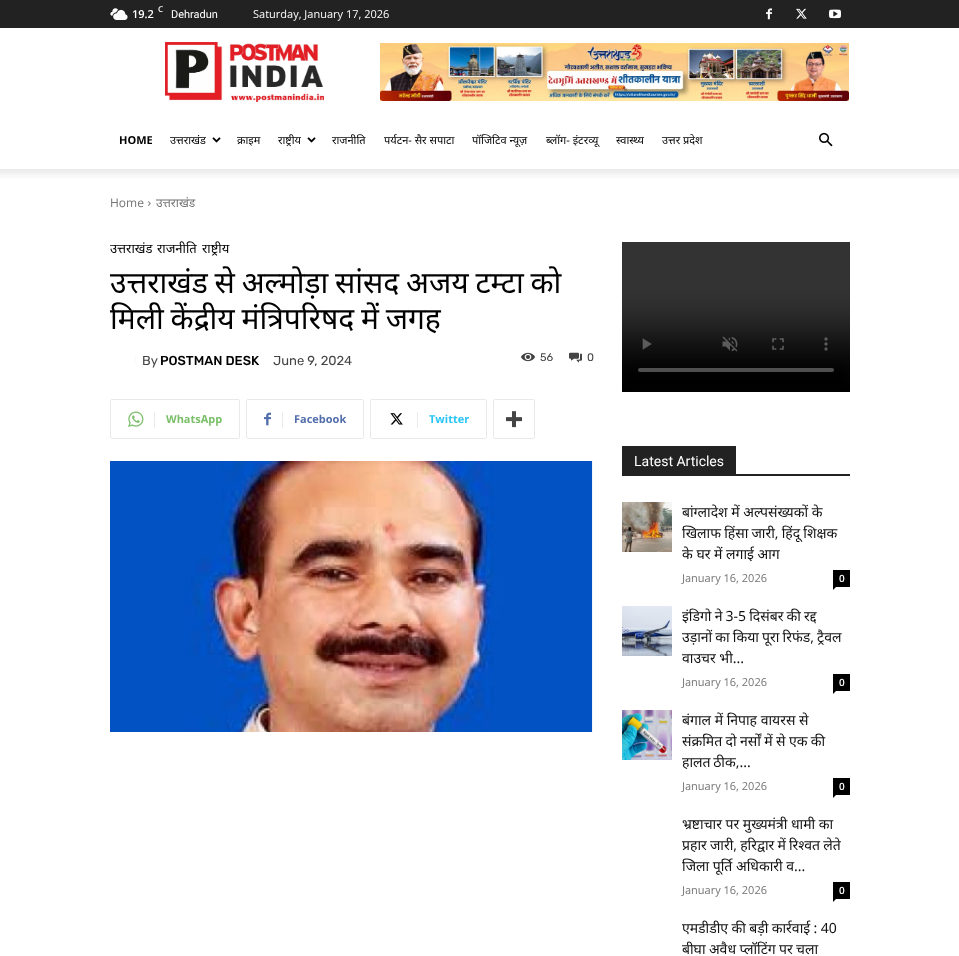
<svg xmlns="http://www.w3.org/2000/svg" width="959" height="956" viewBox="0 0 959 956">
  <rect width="100%" height="100%" fill="#ffffff"/>
  <rect x="0" y="0" width="959" height="28" fill="#222222"/>
  <image x="110" y="8" width="18" height="12" href="img1.png"/>
  <text x="132" y="18" font-family="Open Sans" font-size="11" font-weight="600" fill="#ffffff">19.2</text>
  <text x="158" y="12" font-family="Open Sans" font-size="8" font-weight="600" fill="#ffffff">C</text>
  <text x="171" y="18" font-family="Roboto" font-size="11" fill="#ffffff">Dehradun</text>
  <text x="253" y="18" font-family="Open Sans" font-size="11" fill="#ffffff">Saturday, January 17, 2026</text>
  <image x="766" y="8" width="6" height="12" href="img2.png"/>
  <image x="796" y="8" width="11" height="11" href="img3.png"/>
  <image x="829" y="9" width="12" height="10" href="img4.png"/>
  <image x="165" y="42" width="159" height="60" href="img5.png"/>
  <image x="380" y="43" width="469" height="58" href="img6.png"/>
  <text x="119" y="144" font-family="Open Sans" font-size="11" font-weight="bold" fill="#000000">HOME</text>
  <text x="170" y="144" font-family="Noto Sans" font-size="11" fill="#000000">उत्तराखंड</text>
  <image x="212" y="137" width="9" height="6" href="img7.png"/>
  <text x="237" y="144" font-family="Noto Sans" font-size="11" fill="#000000">क्राइम</text>
  <text x="278" y="144" font-family="Noto Sans" font-size="11" fill="#000000">राष्ट्रीय</text>
  <image x="307" y="137" width="9" height="6" href="img7.png"/>
  <text x="332" y="144" font-family="Noto Sans" font-size="11" fill="#000000">राजनीति</text>
  <text x="384" y="144" font-family="Noto Sans" font-size="11" fill="#000000">पर्यटन- सैर सपाटा</text>
  <text x="472" y="144" font-family="Noto Sans" font-size="11" fill="#000000">पॉजिटिव न्यूज़</text>
  <text x="546" y="144" font-family="Noto Sans" font-size="11" fill="#000000">ब्लॉग- इंटरव्यू</text>
  <text x="616" y="144" font-family="Noto Sans" font-size="11" fill="#000000">स्वास्थ्य</text>
  <text x="662" y="144" font-family="Noto Sans" font-size="11" fill="#000000">उत्तर प्रदेश</text>
  <image x="819" y="132" width="14" height="15" href="img8.png"/>
  <image x="0" y="169" width="959" height="9" href="img9.png"/>
  <text x="110" y="207" font-family="Open Sans" font-size="12" fill="#747474">Home</text>
  <image x="148" y="201" width="3" height="5" href="img10.png"/>
  <text x="156" y="207" font-family="Noto Sans" font-size="12" fill="#747474">उत्तराखंड</text>
  <text x="110" y="253" font-family="Noto Sans" font-size="13" fill="#000000">उत्तराखंड</text>
  <text x="157" y="253" font-family="Noto Sans" font-size="13" fill="#000000">राजनीति</text>
  <text x="202" y="253" font-family="Noto Sans" font-size="13" fill="#000000">राष्ट्रीय</text>
  <text x="110" y="293" word-spacing="-1" font-family="Noto Sans" font-size="30" fill="#000000">उत्तराखंड से अल्मोड़ा सांसद अजय टम्टा को</text>
  <text x="110" y="329" word-spacing="-1" font-family="Noto Sans" font-size="30" fill="#000000">मिली केंद्रीय मंत्रिपरिषद में जगह</text>
  <image x="135" y="356" width="1" height="7" href="img11.png"/>
  <text x="142" y="365" font-family="Rubik" font-size="13" fill="#444444">By</text>
  <text x="160" y="365" font-family="Rubik" font-size="13" font-weight="500" fill="#000000">POSTMAN DESK</text>
  <text x="273" y="365" font-family="Rubik" font-size="13" fill="#444444">June 9, 2024</text>
  <image x="521" y="352" width="14" height="10" href="img12.png"/>
  <text x="540" y="361" font-family="Rubik" font-size="11" fill="#444444">56</text>
  <image x="569" y="352" width="13" height="11" href="img13.png"/>
  <text x="587" y="361" font-family="Rubik" font-size="11" fill="#444444">0</text>
  <rect x="110" y="400" width="1" height="38" fill="#e9e9e9"/>
  <image x="128" y="411" width="16" height="16" href="img14.png"/>
  <rect x="111" y="399" width="128" height="1" fill="#e9e9e9"/>
  <rect x="239" y="400" width="1" height="38" fill="#e9e9e9"/>
  <rect x="111" y="438" width="128" height="1" fill="#e9e9e9"/>
  <rect x="154" y="412" width="1" height="16" fill="#ebebeb"/>
  <text x="166" y="423" font-family="Open Sans" font-size="11" font-weight="bold" fill="#7bbf6a">WhatsApp</text>
  <rect x="246" y="400" width="1" height="38" fill="#e9e9e9"/>
  <image x="264" y="412" width="7" height="14" href="img15.png"/>
  <rect x="247" y="399" width="116" height="1" fill="#e9e9e9"/>
  <rect x="363" y="400" width="1" height="38" fill="#e9e9e9"/>
  <rect x="247" y="438" width="116" height="1" fill="#e9e9e9"/>
  <rect x="282" y="412" width="1" height="16" fill="#ebebeb"/>
  <text x="294" y="423" font-family="Open Sans" font-size="11" font-weight="bold" fill="#516eab">Facebook</text>
  <rect x="370" y="400" width="1" height="38" fill="#e9e9e9"/>
  <image x="390" y="413" width="13" height="12" href="img16.png"/>
  <rect x="371" y="399" width="115" height="1" fill="#e9e9e9"/>
  <rect x="486" y="400" width="1" height="38" fill="#e9e9e9"/>
  <rect x="371" y="438" width="115" height="1" fill="#e9e9e9"/>
  <rect x="417" y="412" width="1" height="16" fill="#ebebeb"/>
  <text x="429" y="423" font-family="Open Sans" font-size="11" font-weight="bold" fill="#29c5f6">Twitter</text>
  <rect x="493.5" y="399.5" width="41" height="39" rx="1.5" fill="none" stroke="#e9e9e9"/>
  <image x="506" y="411" width="16" height="17" href="img17.png"/>
  <image x="110" y="461" width="483" height="271" href="img18.png"/>
  <image x="622" y="242" width="228" height="150" href="img19.png"/>
  <rect x="622" y="474" width="228" height="2" fill="#222222"/>
  <rect x="622" y="446" width="114" height="28" fill="#222222"/>
  <text x="634" y="466" font-family="Roboto" font-size="14" fill="#ffffff">Latest Articles</text>
  <image x="622" y="502" width="50" height="50" href="img20.png"/>
  <text x="682" y="517" font-family="Noto Sans" font-size="14" fill="#111111">बांग्लादेश में अल्पसंख्यकों के</text>
  <text x="682" y="538" word-spacing="-0.5" font-family="Noto Sans" font-size="14" fill="#111111">खिलाफ हिंसा जारी, हिंदू शिक्षक</text>
  <text x="682" y="559" font-family="Noto Sans" font-size="14" fill="#111111">के घर में लगाई आग</text>
  <text x="682" y="582" font-family="Open Sans" font-size="11" fill="#747474">January 16, 2026</text>
  <rect x="833" y="570" width="17" height="17" fill="#000000"/>
  <text x="839" y="582" font-family="Open Sans" font-size="10" font-weight="600" fill="#ffffff">0</text>
  <path d="M833 587H836L833 590Z" fill="#000000"/>
  <image x="622" y="606" width="50" height="50" href="img21.png"/>
  <text x="682" y="621" word-spacing="-0.5" font-family="Noto Sans" font-size="14" fill="#111111">इंडिगो ने 3-5 दिसंबर की रद्द</text>
  <text x="682" y="642" word-spacing="-0.5" font-family="Noto Sans" font-size="14" fill="#111111">उड़ानों का किया पूरा रिफंड, ट्रैवल</text>
  <text x="682" y="663" font-family="Noto Sans" font-size="14" fill="#111111">वाउचर भी...</text>
  <text x="682" y="686" font-family="Open Sans" font-size="11" fill="#747474">January 16, 2026</text>
  <rect x="833" y="674" width="17" height="17" fill="#000000"/>
  <text x="839" y="686" font-family="Open Sans" font-size="10" font-weight="600" fill="#ffffff">0</text>
  <path d="M833 691H836L833 694Z" fill="#000000"/>
  <image x="622" y="710" width="50" height="50" href="img22.png"/>
  <text x="682" y="725" font-family="Noto Sans" font-size="14" fill="#111111">बंगाल में निपाह वायरस से</text>
  <text x="682" y="746" word-spacing="-0.25" font-family="Noto Sans" font-size="14" fill="#111111">संक्रमित दो नर्सों में से एक की</text>
  <text x="682" y="767" word-spacing="-1" font-family="Noto Sans" font-size="14" fill="#111111">हालत ठीक,...</text>
  <text x="682" y="790" font-family="Open Sans" font-size="11" fill="#747474">January 16, 2026</text>
  <rect x="833" y="778" width="17" height="17" fill="#000000"/>
  <text x="839" y="790" font-family="Open Sans" font-size="10" font-weight="600" fill="#ffffff">0</text>
  <path d="M833 795H836L833 798Z" fill="#000000"/>
  <text x="682" y="829" font-family="Noto Sans" font-size="14" fill="#111111">भ्रष्टाचार पर मुख्यमंत्री धामी का</text>
  <text x="682" y="850" word-spacing="-0.5" font-family="Noto Sans" font-size="14" fill="#111111">प्रहार जारी, हरिद्वार में रिश्वत लेते</text>
  <text x="682" y="871" font-family="Noto Sans" font-size="14" fill="#111111">जिला पूर्ति अधिकारी व...</text>
  <text x="682" y="894" font-family="Open Sans" font-size="11" fill="#747474">January 16, 2026</text>
  <rect x="833" y="882" width="17" height="17" fill="#000000"/>
  <text x="839" y="894" font-family="Open Sans" font-size="10" font-weight="600" fill="#ffffff">0</text>
  <path d="M833 899H836L833 902Z" fill="#000000"/>
  <text x="682" y="933" word-spacing="-0.25" font-family="Noto Sans" font-size="14" fill="#111111">एमडीडीए की बड़ी कार्रवाई : 40</text>
  <text x="682" y="954" word-spacing="-0.25" font-family="Noto Sans" font-size="14" fill="#111111">बीघा अवैध प्लॉटिंग पर चला</text>
</svg>
